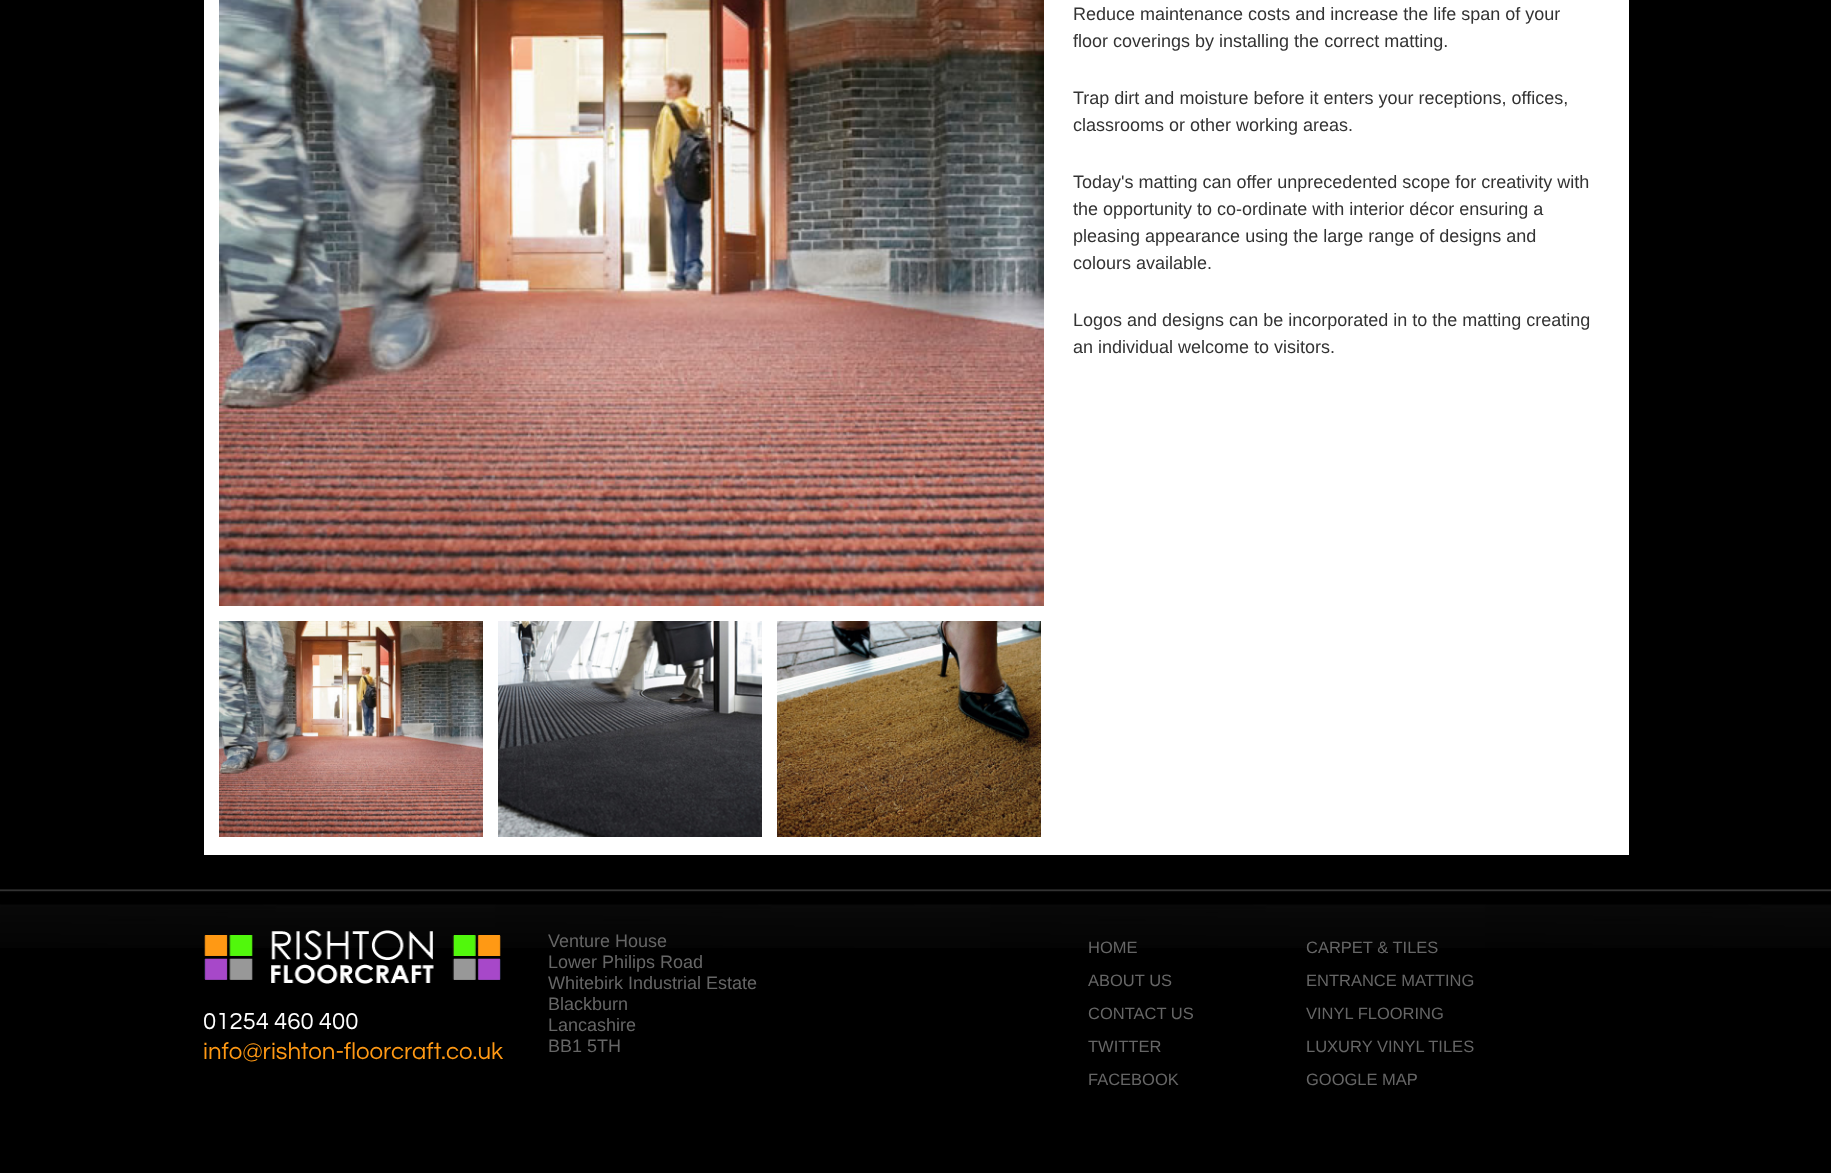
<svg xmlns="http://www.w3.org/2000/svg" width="1831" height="1173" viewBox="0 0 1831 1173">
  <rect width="100%" height="100%" fill="#000000"/>
  <rect x="204" y="0" width="1425" height="855" fill="#ffffff"/>
  <image x="219" y="0" width="825" height="606" href="img1.png"/>
  <text x="1073" y="20" font-family="Liberation Sans" font-size="18" fill="#333333">Reduce maintenance costs and increase the life span of your</text>
  <text x="1073" y="47" font-family="Liberation Sans" font-size="18" fill="#333333">floor coverings by installing the correct matting.</text>
  <text x="1073" y="104" font-family="Liberation Sans" font-size="18" fill="#333333">Trap dirt and moisture before it enters your receptions, offices,</text>
  <text x="1073" y="131" font-family="Liberation Sans" font-size="18" fill="#333333">classrooms or other working areas.</text>
  <text x="1073" y="188" font-family="Liberation Sans" font-size="18" fill="#333333">Today's matting can offer unprecedented scope for creativity with</text>
  <text x="1073" y="215" font-family="Liberation Sans" font-size="18" fill="#333333">the opportunity to co-ordinate with interior décor ensuring a</text>
  <text x="1073" y="242" font-family="Liberation Sans" font-size="18" fill="#333333">pleasing appearance using the large range of designs and</text>
  <text x="1073" y="269" font-family="Liberation Sans" font-size="18" fill="#333333">colours available.</text>
  <text x="1073" y="326" font-family="Liberation Sans" font-size="18" fill="#333333">Logos and designs can be incorporated in to the matting creating</text>
  <text x="1073" y="353" font-family="Liberation Sans" font-size="18" fill="#333333">an individual welcome to visitors.</text>
  <image x="219" y="621" width="264" height="216" href="img2.png"/>
  <image x="498" y="621" width="264" height="216" href="img3.png"/>
  <image x="777" y="621" width="264" height="216" href="img4.png"/>
  <image x="0" y="889" width="1831" height="59" href="img5.png"/>
  <image x="204" y="930" width="297" height="54" href="img6.png"/>
  <text x="203" y="1029" font-family="Questrial" font-size="24" fill="#ffffff">01254 460 400</text>
  <text x="203" y="1059" font-family="Questrial" font-size="24" fill="#ff9914">info@rishton-floorcraft.co.uk</text>
  <text x="548" y="947" font-family="Liberation Sans" font-size="18" fill="#666666">Venture House</text>
  <text x="548" y="968" font-family="Liberation Sans" font-size="18" fill="#666666">Lower Philips Road</text>
  <text x="548" y="989" font-family="Liberation Sans" font-size="18" fill="#666666">Whitebirk Industrial Estate</text>
  <text x="548" y="1010" font-family="Liberation Sans" font-size="18" fill="#666666">Blackburn</text>
  <text x="548" y="1031" font-family="Liberation Sans" font-size="18" fill="#666666">Lancashire</text>
  <text x="548" y="1052" font-family="Liberation Sans" font-size="18" fill="#666666">BB1 5TH</text>
  <text x="1088" y="953" font-family="Liberation Sans" font-size="16.5" fill="#666666">HOME</text>
  <text x="1088" y="986" font-family="Liberation Sans" font-size="16.5" fill="#666666">ABOUT US</text>
  <text x="1088" y="1019" font-family="Liberation Sans" font-size="16.5" fill="#666666">CONTACT US</text>
  <text x="1088" y="1052" font-family="Liberation Sans" font-size="16.5" fill="#666666">TWITTER</text>
  <text x="1088" y="1085" font-family="Liberation Sans" font-size="16.5" fill="#666666">FACEBOOK</text>
  <text x="1306" y="953" font-family="Liberation Sans" font-size="16.5" fill="#666666">CARPET &amp; TILES</text>
  <text x="1306" y="986" font-family="Liberation Sans" font-size="16.5" fill="#666666">ENTRANCE MATTING</text>
  <text x="1306" y="1019" font-family="Liberation Sans" font-size="16.5" fill="#666666">VINYL FLOORING</text>
  <text x="1306" y="1052" font-family="Liberation Sans" font-size="16.5" fill="#666666">LUXURY VINYL TILES</text>
  <text x="1306" y="1085" font-family="Liberation Sans" font-size="16.5" fill="#666666">GOOGLE MAP</text>
</svg>
